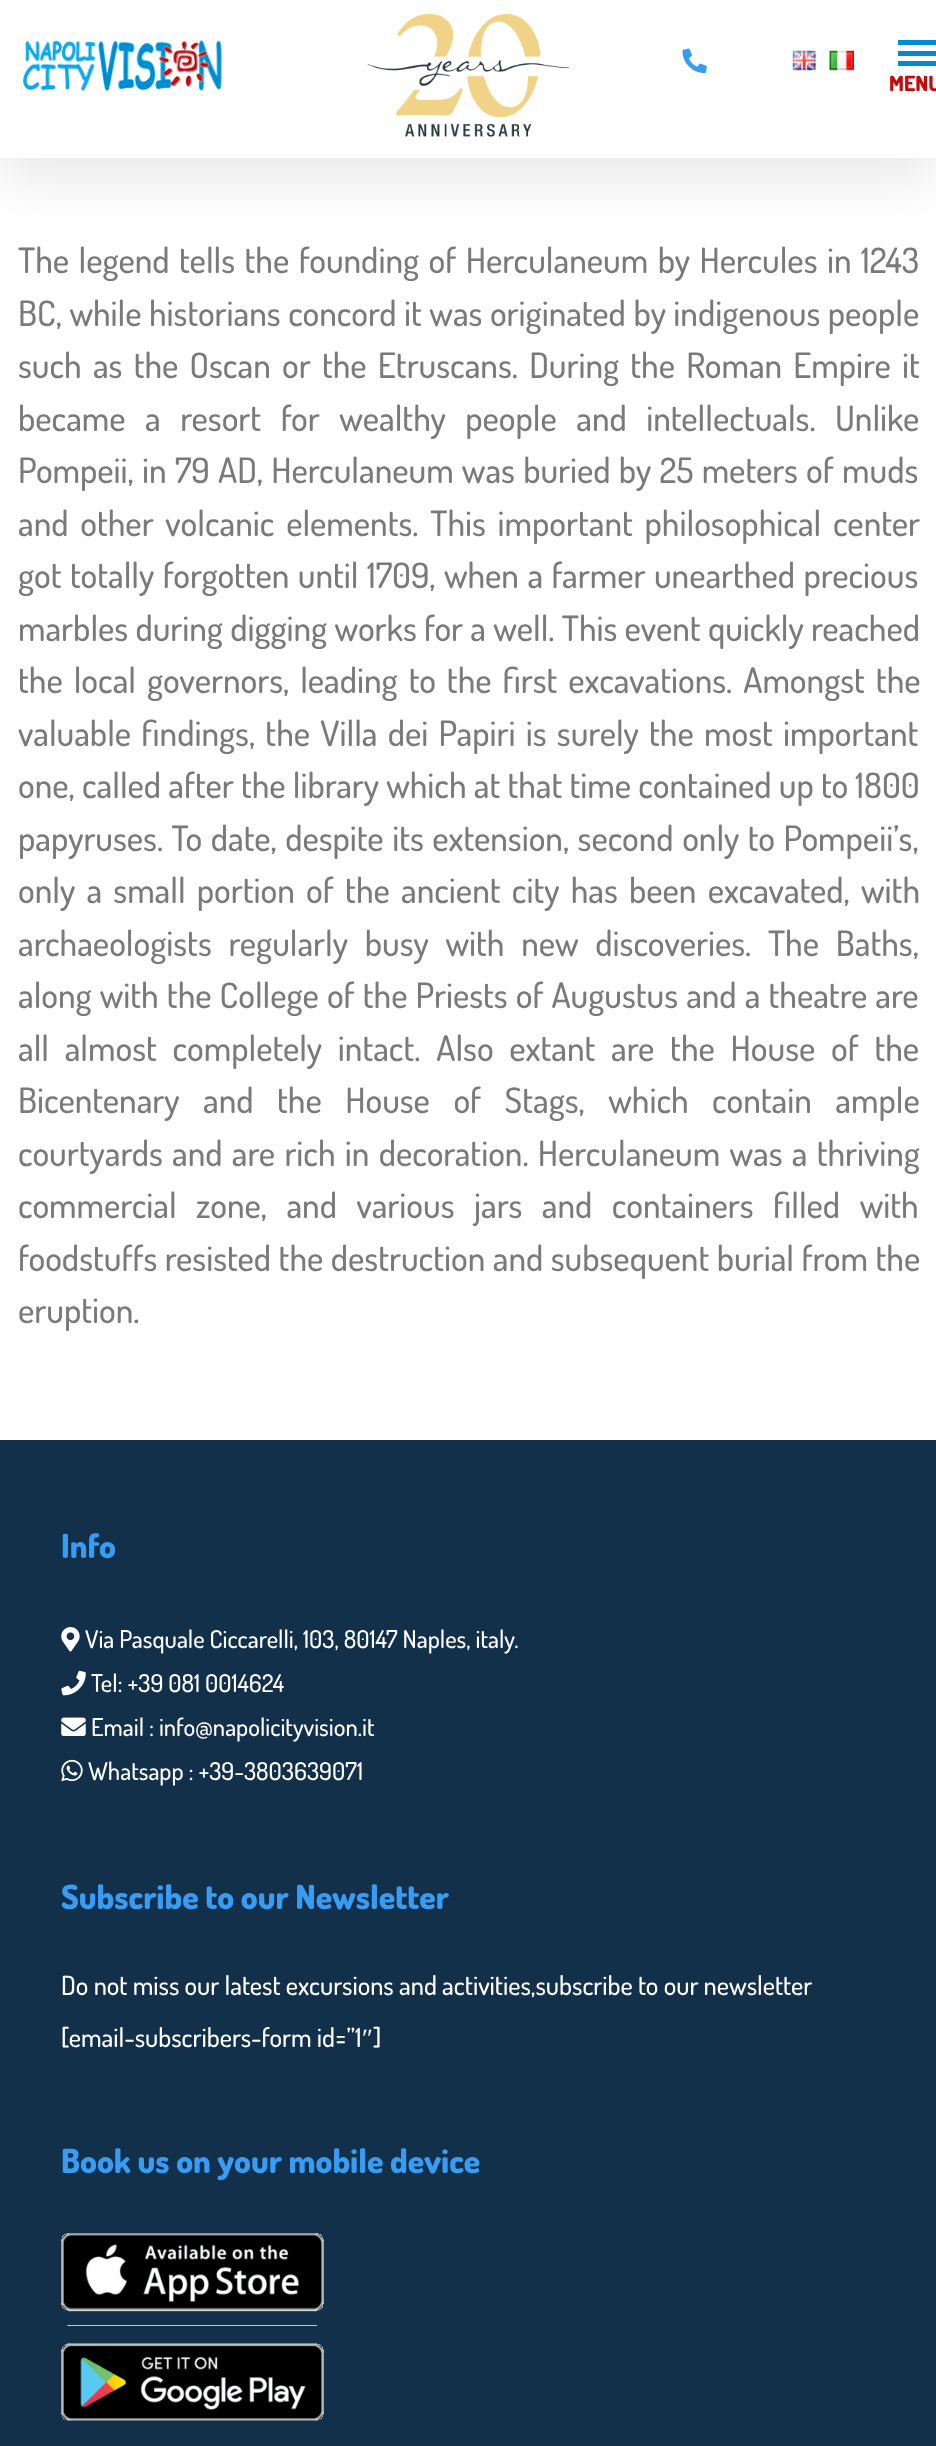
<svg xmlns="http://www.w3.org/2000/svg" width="936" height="2446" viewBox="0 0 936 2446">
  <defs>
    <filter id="blur1" x="-50%" y="-200%" width="200%" height="500%"><feGaussianBlur stdDeviation="29"/></filter>
  </defs>
  <rect width="100%" height="100%" fill="#ffffff"/>
  <rect x="0" y="18" width="936" height="157" fill="#000000" fill-opacity="0.1" filter="url(#blur1)"/>
  <rect x="0" y="0" width="936" height="158" fill="#ffffff"/>
  <image x="23" y="40" width="199" height="55" href="img1.png"/>
  <image x="367" y="14" width="202" height="123" href="img2.png"/>
  <image x="682" y="48" width="25" height="26" href="img3.png"/>
  <image x="792" y="50" width="24" height="21" href="img4.png"/>
  <image x="829" y="50" width="25" height="21" href="img5.png"/>
  <rect x="898" y="40" width="38" height="5" fill="#008bd0"/>
  <rect x="898" y="51" width="38" height="5" fill="#008bd0"/>
  <rect x="898" y="61" width="38" height="5" fill="#008bd0"/>
  <text x="889" y="91" font-family="Dosis" font-size="21" font-weight="800" fill="#c20c11">MENU</text>
  <text x="18" y="273" word-spacing="2.5" font-family="Dosis" font-size="35" font-weight="500" fill="#7a7a7a">The legend tells the founding of Herculaneum by Hercules in 1243</text>
  <text x="18" y="326" word-spacing="0.5" font-family="Dosis" font-size="35" font-weight="500" fill="#7a7a7a">BC, while historians concord it was originated by indigenous people</text>
  <text x="18" y="378" word-spacing="4.25" font-family="Dosis" font-size="35" font-weight="500" fill="#7a7a7a">such as the Oscan or the Etruscans. During the Roman Empire it</text>
  <text x="18" y="431" word-spacing="12.5" font-family="Dosis" font-size="35" font-weight="500" fill="#7a7a7a">became a resort for wealthy people and intellectuals. Unlike</text>
  <text x="18" y="483" word-spacing="1.25" font-family="Dosis" font-size="35" font-weight="500" fill="#7a7a7a">Pompeii, in 79 AD, Herculaneum was buried by 25 meters of muds</text>
  <text x="18" y="536" word-spacing="4.75" font-family="Dosis" font-size="35" font-weight="500" fill="#7a7a7a">and other volcanic elements. This important philosophical center</text>
  <text x="18" y="588" word-spacing="1.5" font-family="Dosis" font-size="35" font-weight="500" fill="#7a7a7a">got totally forgotten until 1709, when a farmer unearthed precious</text>
  <text x="18" y="641" word-spacing="0.25" font-family="Dosis" font-size="35" font-weight="500" fill="#7a7a7a">marbles during digging works for a well. This event quickly reached</text>
  <text x="18" y="693" word-spacing="4" font-family="Dosis" font-size="35" font-weight="500" fill="#7a7a7a">the local governors, leading to the first excavations. Amongst the</text>
  <text x="18" y="746" word-spacing="3.25" font-family="Dosis" font-size="35" font-weight="500" fill="#7a7a7a">valuable findings, the Villa dei Papiri is surely the most important</text>
  <text x="18" y="798" word-spacing="0.2" font-family="Dosis" font-size="35" font-weight="500" fill="#7a7a7a">one, called after the library which at that time contained up to 1800</text>
  <text x="18" y="851" word-spacing="1.5" font-family="Dosis" font-size="35" font-weight="500" fill="#7a7a7a">papyruses. To date, despite its extension, second only to Pompeii’s,</text>
  <text x="18" y="903" word-spacing="4.25" font-family="Dosis" font-size="35" font-weight="500" fill="#7a7a7a">only a small portion of the ancient city has been excavated, with</text>
  <text x="18" y="956" word-spacing="9.75" font-family="Dosis" font-size="35" font-weight="500" fill="#7a7a7a">archaeologists regularly busy with new discoveries. The Baths,</text>
  <text x="18" y="1008" word-spacing="1.1" font-family="Dosis" font-size="35" font-weight="500" fill="#7a7a7a">along with the College of the Priests of Augustus and a theatre are</text>
  <text x="18" y="1061" word-spacing="8.75" font-family="Dosis" font-size="35" font-weight="500" fill="#7a7a7a">all almost completely intact. Also extant are the House of the</text>
  <text x="18" y="1113" word-spacing="16.5" font-family="Dosis" font-size="35" font-weight="500" fill="#7a7a7a">Bicentenary and the House of Stags, which contain ample</text>
  <text x="18" y="1166" word-spacing="2.25" font-family="Dosis" font-size="35" font-weight="500" fill="#7a7a7a">courtyards and are rich in decoration. Herculaneum was a thriving</text>
  <text x="18" y="1218" word-spacing="12.5" font-family="Dosis" font-size="35" font-weight="500" fill="#7a7a7a">commercial zone, and various jars and containers filled with</text>
  <text x="18" y="1271" word-spacing="0.5" font-family="Dosis" font-size="35" font-weight="500" fill="#7a7a7a">foodstuffs resisted the destruction and subsequent burial from the</text>
  <text x="18" y="1323" font-family="Dosis" font-size="35" font-weight="500" fill="#7a7a7a">eruption.</text>
  <rect x="0" y="1440" width="936" height="1006" fill="#13304a"/>
  <text x="61" y="1558" font-family="Dosis" font-size="33.25" font-weight="800" fill="#379cf4">Info</text>
  <image x="61" y="1627" width="19" height="25" href="img6.png"/>
  <text x="85" y="1648" font-family="Dosis" font-size="24.5" font-weight="500" fill="#ffffff">Via Pasquale Ciccarelli, 103, 80147 Naples, italy.</text>
  <image x="61" y="1670" width="25" height="26" href="img7.png"/>
  <text x="91" y="1692" font-family="Dosis" font-size="24.5" font-weight="500" fill="#ffffff">Tel: +39 081 0014624</text>
  <image x="61" y="1717" width="25" height="19" href="img8.png"/>
  <text x="91" y="1736" font-family="Dosis" font-size="24.5" font-weight="500" fill="#ffffff">Email : info@napolicityvision.it</text>
  <image x="61" y="1759" width="22" height="23" href="img9.png"/>
  <text x="88" y="1780" font-family="Dosis" font-size="24.5" font-weight="500" fill="#ffffff">Whatsapp : +39-3803639071</text>
  <text x="61" y="1909" font-family="Dosis" font-size="33.25" font-weight="800" fill="#379cf4">Subscribe to our Newsletter</text>
  <text x="61" y="1995" font-family="Dosis" font-size="26.25" font-weight="500" fill="#ffffff">Do not miss our latest excursions and activities,subscribe to our newsletter</text>
  <text x="61" y="2047" font-family="Dosis" font-size="26.25" font-weight="500" fill="#ffffff">[email-subscribers-form id=”1</text>
  <text x="362" y="2047" font-family="Liberation Serif" font-size="26.25" fill="#ffffff">″</text>
  <text x="373" y="2047" font-family="Dosis" font-size="26.25" font-weight="500" fill="#ffffff">]</text>
  <text x="61" y="2173" font-family="Dosis" font-size="33.25" font-weight="800" fill="#379cf4">Book us on your mobile device</text>
  <image x="61" y="2233" width="263" height="93" href="img10.png"/>
  <image x="61" y="2343" width="263" height="78" href="img11.png"/>
</svg>
